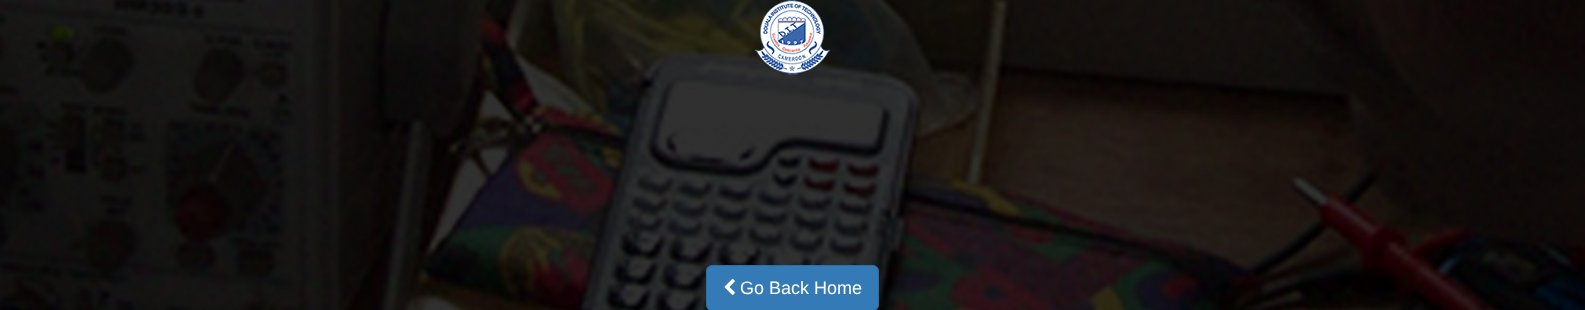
<svg xmlns="http://www.w3.org/2000/svg" width="1585" height="310" viewBox="0 0 1585 310">
  <rect width="100%" height="100%" fill="#ffffff"/>
  <image x="0" y="0" width="1585" height="310" href="img1.png"/>
  <image x="755" y="0" width="75" height="75" href="img2.png"/>
  <rect x="706.5" y="265.5" width="172" height="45" rx="5.5" fill="#337ab7" stroke="#2e6da4"/>
  <image x="724" y="278" width="11" height="17" href="img3.png"/>
  <text x="740" y="294" font-family="Liberation Sans" font-size="18" fill="#ffffff">Go Back Home</text>
</svg>
